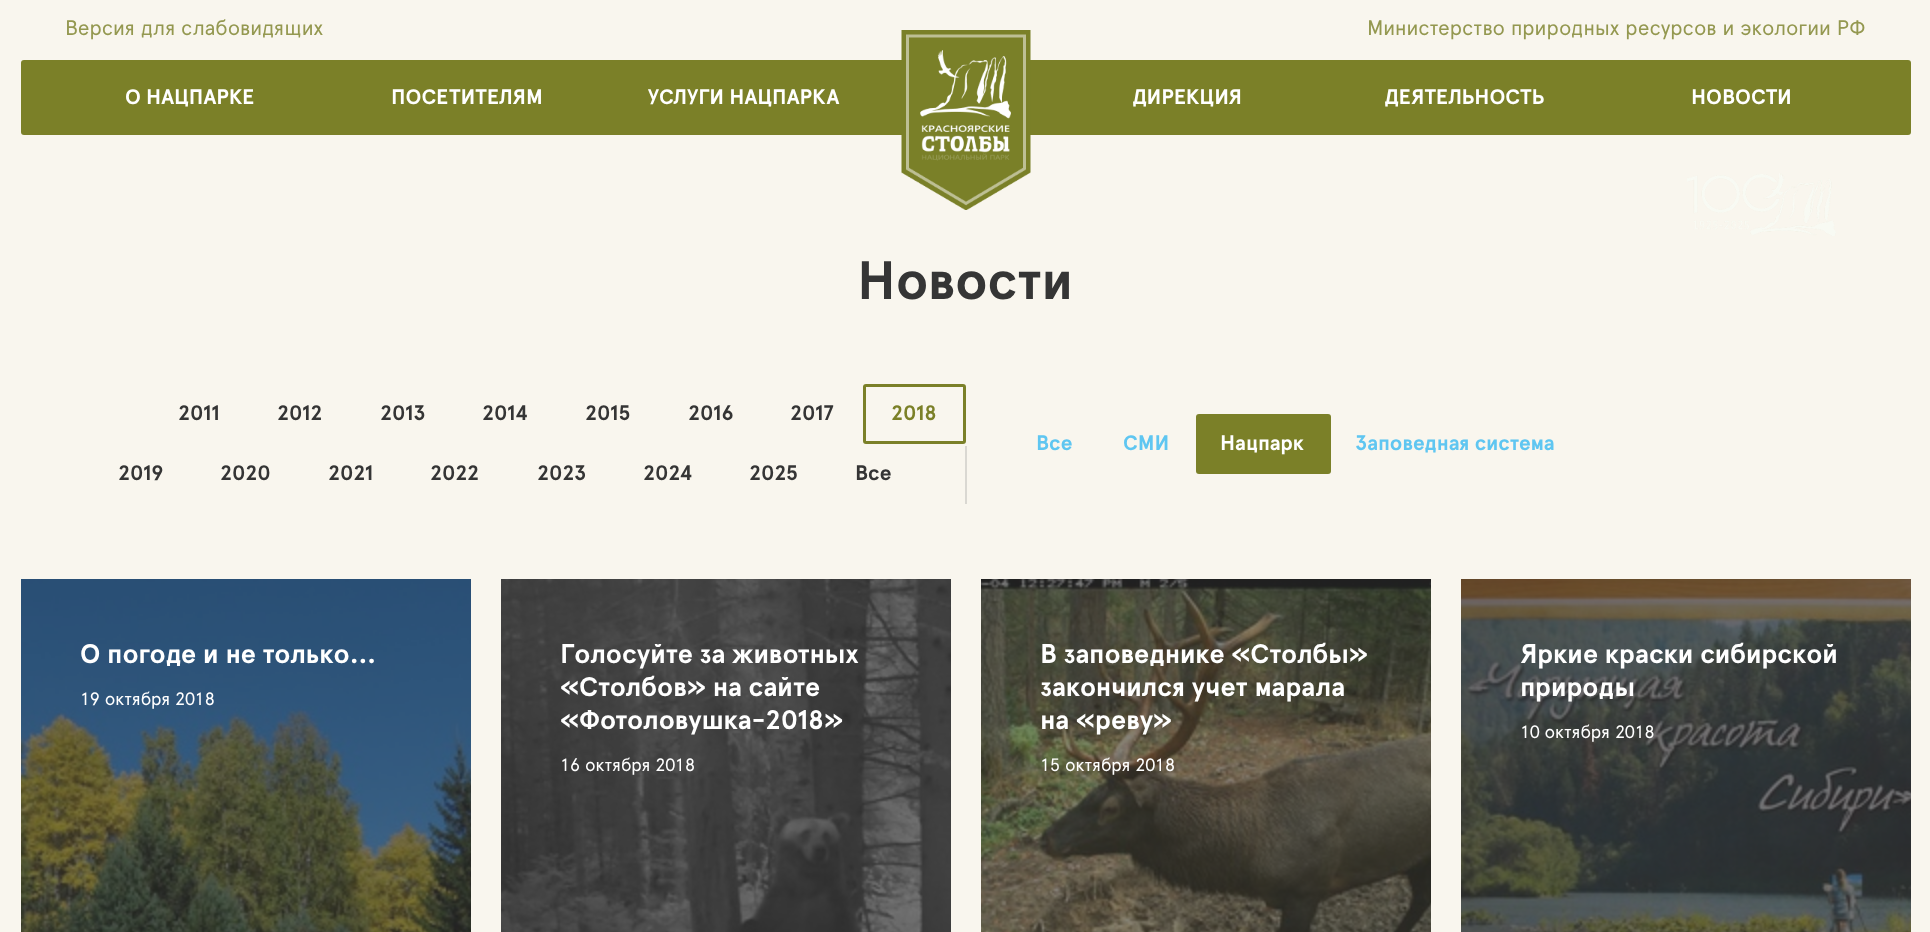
<svg xmlns="http://www.w3.org/2000/svg" width="1930" height="932" viewBox="0 0 1930 932">
  <rect width="100%" height="100%" fill="#f9f6ee"/>
  <text x="65" y="35" font-family="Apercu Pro" font-size="21" fill="#949850">Версия для слабовидящих</text>
  <text x="1367" y="35" font-family="Apercu Pro" font-size="21" fill="#949850">Министерство природных ресурсов и экологии РФ</text>
  <rect x="21" y="60" width="1890" height="75" rx="3" fill="#7b8028"/>
  <text x="125" y="104" font-family="Apercu Pro" font-size="21" font-weight="bold" fill="#ffffff">О НАЦПАРКЕ</text>
  <text x="391" y="104" font-family="Apercu Pro" font-size="21" font-weight="bold" fill="#ffffff">ПОСЕТИТЕЛЯМ</text>
  <text x="648" y="104" font-family="Apercu Pro" font-size="21" font-weight="bold" fill="#ffffff">УСЛУГИ НАЦПАРКА</text>
  <image x="901" y="30" width="130" height="180" href="img1.png"/>
  <text x="1132" y="104" font-family="Apercu Pro" font-size="21" font-weight="bold" fill="#ffffff">ДИРЕКЦИЯ</text>
  <text x="1384" y="104" font-family="Apercu Pro" font-size="21" font-weight="bold" fill="#ffffff">ДЕЯТЕЛЬНОСТЬ</text>
  <text x="1691" y="104" font-family="Apercu Pro" font-size="21" font-weight="bold" fill="#ffffff">НОВОСТИ</text>
  <image x="1687" y="173" width="149" height="63" href="img2.png"/>
  <text x="857" y="299" font-family="Apercu Pro" font-size="54" font-weight="bold" fill="#353535">Новости</text>
  <text x="178" y="420" font-family="Apercu Pro" font-size="21" font-weight="bold" fill="#353535">2011</text>
  <text x="277" y="420" font-family="Apercu Pro" font-size="21" font-weight="bold" fill="#353535">2012</text>
  <text x="380" y="420" font-family="Apercu Pro" font-size="21" font-weight="bold" fill="#353535">2013</text>
  <text x="482" y="420" font-family="Apercu Pro" font-size="21" font-weight="bold" fill="#353535">2014</text>
  <text x="585" y="420" font-family="Apercu Pro" font-size="21" font-weight="bold" fill="#353535">2015</text>
  <text x="688" y="420" font-family="Apercu Pro" font-size="21" font-weight="bold" fill="#353535">2016</text>
  <text x="790" y="420" font-family="Apercu Pro" font-size="21" font-weight="bold" fill="#353535">2017</text>
  <rect x="864.5" y="385.5" width="100" height="57" rx="1.5" fill="none" stroke="#7b8028" stroke-width="3"/>
  <text x="891" y="420" font-family="Apercu Pro" font-size="21" font-weight="bold" fill="#7b8028">2018</text>
  <text x="118" y="480" font-family="Apercu Pro" font-size="21" font-weight="bold" fill="#353535">2019</text>
  <text x="220" y="480" font-family="Apercu Pro" font-size="21" font-weight="bold" fill="#353535">2020</text>
  <text x="328" y="480" font-family="Apercu Pro" font-size="21" font-weight="bold" fill="#353535">2021</text>
  <text x="430" y="480" font-family="Apercu Pro" font-size="21" font-weight="bold" fill="#353535">2022</text>
  <text x="537" y="480" font-family="Apercu Pro" font-size="21" font-weight="bold" fill="#353535">2023</text>
  <text x="643" y="480" font-family="Apercu Pro" font-size="21" font-weight="bold" fill="#353535">2024</text>
  <text x="749" y="480" font-family="Apercu Pro" font-size="21" font-weight="bold" fill="#353535">2025</text>
  <text x="855" y="480" font-family="Apercu Pro" font-size="21" font-weight="bold" fill="#353535">Все</text>
  <rect x="965" y="446" width="2" height="58" fill="#dad8d2"/>
  <text x="1036" y="450" font-family="Apercu Pro" font-size="21" font-weight="bold" fill="#5fc6f1">Все</text>
  <text x="1123" y="450" font-family="Apercu Pro" font-size="21" font-weight="bold" fill="#5fc6f1">СМИ</text>
  <rect x="1196" y="414" width="135" height="60" rx="3" fill="#7b8028"/>
  <text x="1220" y="450" font-family="Apercu Pro" font-size="21" font-weight="bold" fill="#ffffff">Нацпарк</text>
  <text x="1355" y="450" font-family="Apercu Pro" font-size="21" font-weight="bold" fill="#5fc6f1">Заповедная система</text>
  <image x="21" y="579" width="450" height="353" href="img3.png"/>
  <text x="80" y="663" font-family="Apercu Pro" font-size="27" font-weight="bold" fill="#ffffff">О погоде и не только…</text>
  <text x="80" y="705" font-family="Apercu Pro" font-size="18" fill="#ffffff">19 октября 2018</text>
  <image x="501" y="579" width="450" height="353" href="img4.png"/>
  <text x="560" y="663" font-family="Apercu Pro" font-size="27" font-weight="bold" fill="#ffffff">Голосуйте за животных</text>
  <text x="560" y="696" font-family="Apercu Pro" font-size="27" font-weight="bold" fill="#ffffff">«Столбов» на сайте</text>
  <text x="560" y="729" font-family="Apercu Pro" font-size="27" font-weight="bold" fill="#ffffff">«Фотоловушка-2018»</text>
  <text x="560" y="771" font-family="Apercu Pro" font-size="18" fill="#ffffff">16 октября 2018</text>
  <image x="981" y="579" width="450" height="353" href="img5.png"/>
  <text x="1040" y="663" font-family="Apercu Pro" font-size="27" font-weight="bold" fill="#ffffff">В заповеднике «Столбы»</text>
  <text x="1040" y="696" font-family="Apercu Pro" font-size="27" font-weight="bold" fill="#ffffff">закончился учет марала</text>
  <text x="1040" y="729" font-family="Apercu Pro" font-size="27" font-weight="bold" fill="#ffffff">на «реву»</text>
  <text x="1040" y="771" font-family="Apercu Pro" font-size="18" fill="#ffffff">15 октября 2018</text>
  <image x="1461" y="579" width="450" height="353" href="img6.png"/>
  <text x="1520" y="663" font-family="Apercu Pro" font-size="27" font-weight="bold" fill="#ffffff">Яркие краски сибирской</text>
  <text x="1520" y="696" font-family="Apercu Pro" font-size="27" font-weight="bold" fill="#ffffff">природы</text>
  <text x="1520" y="738" font-family="Apercu Pro" font-size="18" fill="#ffffff">10 октября 2018</text>
</svg>
